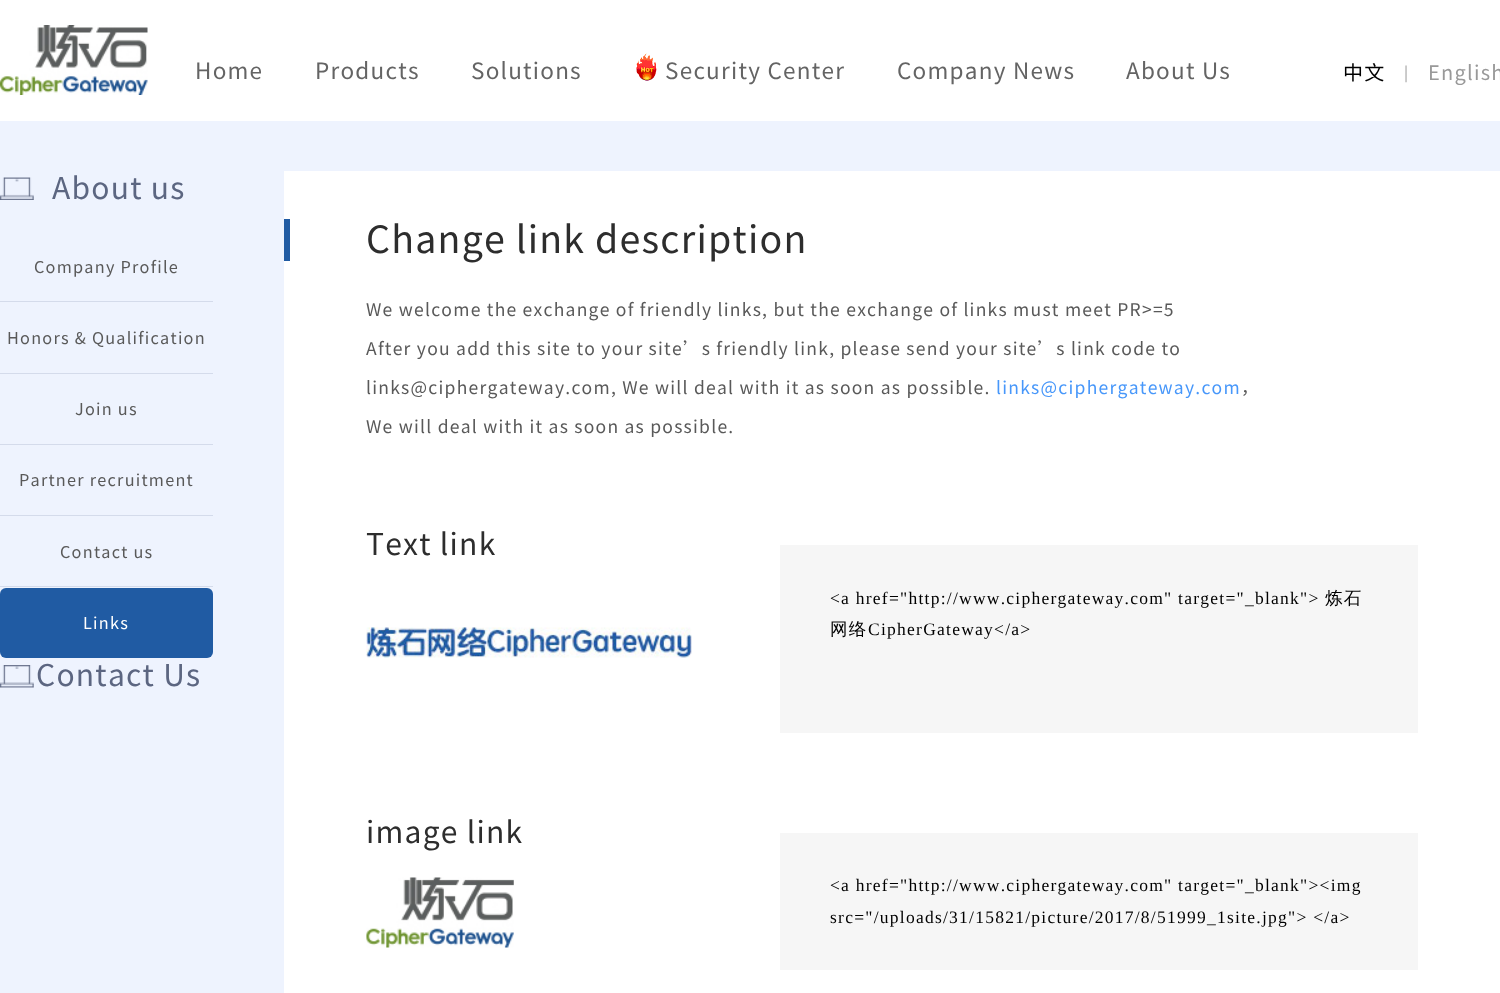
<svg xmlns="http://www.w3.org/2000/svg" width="1500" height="993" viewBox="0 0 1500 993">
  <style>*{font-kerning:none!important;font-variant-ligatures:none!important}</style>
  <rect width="100%" height="100%" fill="#eef3fe"/>
  <rect x="0" y="0" width="1500" height="121" fill="#ffffff"/>
  <image x="0" y="25" width="148" height="70" href="img1.png"/>
  <text x="195" y="79" font-family="Noto Sans SC" font-size="22.5" letter-spacing="1.25" fill="#646464">Home</text>
  <text x="315" y="79" font-family="Noto Sans SC" font-size="22.5" letter-spacing="1.25" fill="#646464">Products</text>
  <text x="471" y="79" font-family="Noto Sans SC" font-size="22.5" letter-spacing="1.25" fill="#646464">Solutions</text>
  <image x="636" y="53" width="21" height="28" href="img2.png"/>
  <text x="665" y="79" font-family="Noto Sans SC" font-size="22.5" letter-spacing="1.25" fill="#646464">Security Center</text>
  <text x="897" y="79" font-family="Noto Sans SC" font-size="22.5" letter-spacing="1.25" fill="#646464">Company News</text>
  <text x="1126" y="79" font-family="Noto Sans SC" font-size="22.5" letter-spacing="1.25" fill="#646464">About Us</text>
  <text x="1343" y="80" font-family="Noto Sans SC" font-size="20" letter-spacing="1.25" fill="#000000">中文</text>
  <text x="1404" y="78" font-family="Noto Sans SC" font-size="15" letter-spacing="1.25" fill="#999999">|</text>
  <text x="1428" y="80" font-family="Noto Sans SC" font-size="20" letter-spacing="1.25" fill="#999999">English</text>
  <image x="0" y="177" width="34" height="23" href="img3.png"/>
  <text x="52" y="199" font-family="Noto Sans SC" font-size="30" letter-spacing="1.25" fill="#5c6681">About us</text>
  <rect x="0" y="301" width="213" height="1" fill="#d4dbeb"/>
  <text x="34" y="273" font-family="Noto Sans SC" font-size="16.25" letter-spacing="1.25" fill="#595959">Company Profile</text>
  <rect x="0" y="373" width="213" height="1" fill="#d4dbeb"/>
  <text x="7" y="344" font-family="Noto Sans SC" font-size="16.25" letter-spacing="1.25" fill="#595959">Honors &amp; Qualification</text>
  <rect x="0" y="444" width="213" height="1" fill="#d4dbeb"/>
  <text x="75" y="415" font-family="Noto Sans SC" font-size="16.25" letter-spacing="1.25" fill="#595959">Join us</text>
  <rect x="0" y="515" width="213" height="1" fill="#d4dbeb"/>
  <text x="19" y="486" font-family="Noto Sans SC" font-size="16.25" letter-spacing="1.25" fill="#595959">Partner recruitment</text>
  <rect x="0" y="586" width="213" height="1" fill="#d4dbeb"/>
  <text x="60" y="558" font-family="Noto Sans SC" font-size="16.25" letter-spacing="1.25" fill="#595959">Contact us</text>
  <rect x="0" y="588" width="213" height="70" rx="6" fill="#205ba3"/>
  <text x="83" y="629" font-family="Noto Sans SC" font-size="16.25" letter-spacing="1.25" fill="#ffffff">Links</text>
  <image x="0" y="665" width="34" height="23" href="img4.png"/>
  <text x="36" y="686" font-family="Noto Sans SC" font-size="30" letter-spacing="1.25" fill="#5c6681">Contact Us</text>
  <rect x="284" y="171" width="1216" height="822" fill="#ffffff"/>
  <rect x="284" y="219" width="6" height="42" fill="#205ba3"/>
  <text x="366" y="253" font-family="Noto Sans SC" font-size="37.5" letter-spacing="1.25" fill="#2d2d2d">Change link description</text>
  <text x="366" y="316" font-family="Noto Sans SC" font-size="17.5" letter-spacing="1.25" fill="#595959">We welcome the exchange of friendly links, but the exchange of links must meet PR&gt;=5</text>
  <text x="366" y="355" font-family="Noto Sans SC" font-size="17.5" letter-spacing="1.25" fill="#595959">After you add this site to your site’s friendly link, please send your site’s link code to</text>
  <text x="366" y="394" font-family="Noto Sans SC" font-size="17.5" letter-spacing="1.25" fill="#595959">links@ciphergateway.com, We will deal with it as soon as possible.</text>
  <text x="996" y="394" font-family="Noto Sans SC" font-size="17.5" letter-spacing="1.25" fill="#4797fa">links@ciphergateway.com</text>
  <text x="1241" y="394" font-family="Noto Sans SC" font-size="17.5" letter-spacing="1.25" fill="#595959">，</text>
  <text x="366" y="433" font-family="Noto Sans SC" font-size="17.5" letter-spacing="1.25" fill="#595959">We will deal with it as soon as possible.</text>
  <text x="366" y="555" font-family="Noto Sans SC" font-size="30" letter-spacing="1.25" fill="#2d2d2d">Text link</text>
  <image x="366" y="627" width="326" height="31" href="img5.png"/>
  <rect x="780" y="545" width="638" height="188" fill="#f6f6f6"/>
  <text x="830" y="604" font-family="Liberation Serif" font-size="17.5" letter-spacing="1.25" fill="#000000">&lt;a href="http://www.ciphergateway.com" target="_blank"&gt;</text>
  <text x="1325" y="604" font-family="WenQuanYi Zen Hei" font-size="17.5" font-weight="500" letter-spacing="1.25" fill="#000000">炼石</text>
  <text x="830" y="635" font-family="WenQuanYi Zen Hei" font-size="17.5" font-weight="500" letter-spacing="1.25" fill="#000000">网络</text>
  <text x="868" y="635" font-family="Liberation Serif" font-size="17.5" letter-spacing="1.25" fill="#000000">CipherGateway&lt;/a&gt;</text>
  <text x="366" y="843" font-family="Noto Sans SC" font-size="30" letter-spacing="1.25" fill="#2d2d2d">image link</text>
  <image x="366" y="877" width="148" height="71" href="img6.png"/>
  <rect x="780" y="833" width="638" height="137" fill="#f6f6f6"/>
  <text x="830" y="891" font-family="Liberation Serif" font-size="17.5" letter-spacing="1.25" fill="#000000">&lt;a href="http://www.ciphergateway.com" target="_blank"&gt;&lt;img</text>
  <text x="830" y="923" font-family="Liberation Serif" font-size="17.5" letter-spacing="1.25" fill="#000000">src="/uploads/31/15821/picture/2017/8/51999_1site.jpg"&gt; &lt;/a&gt;</text>
</svg>
